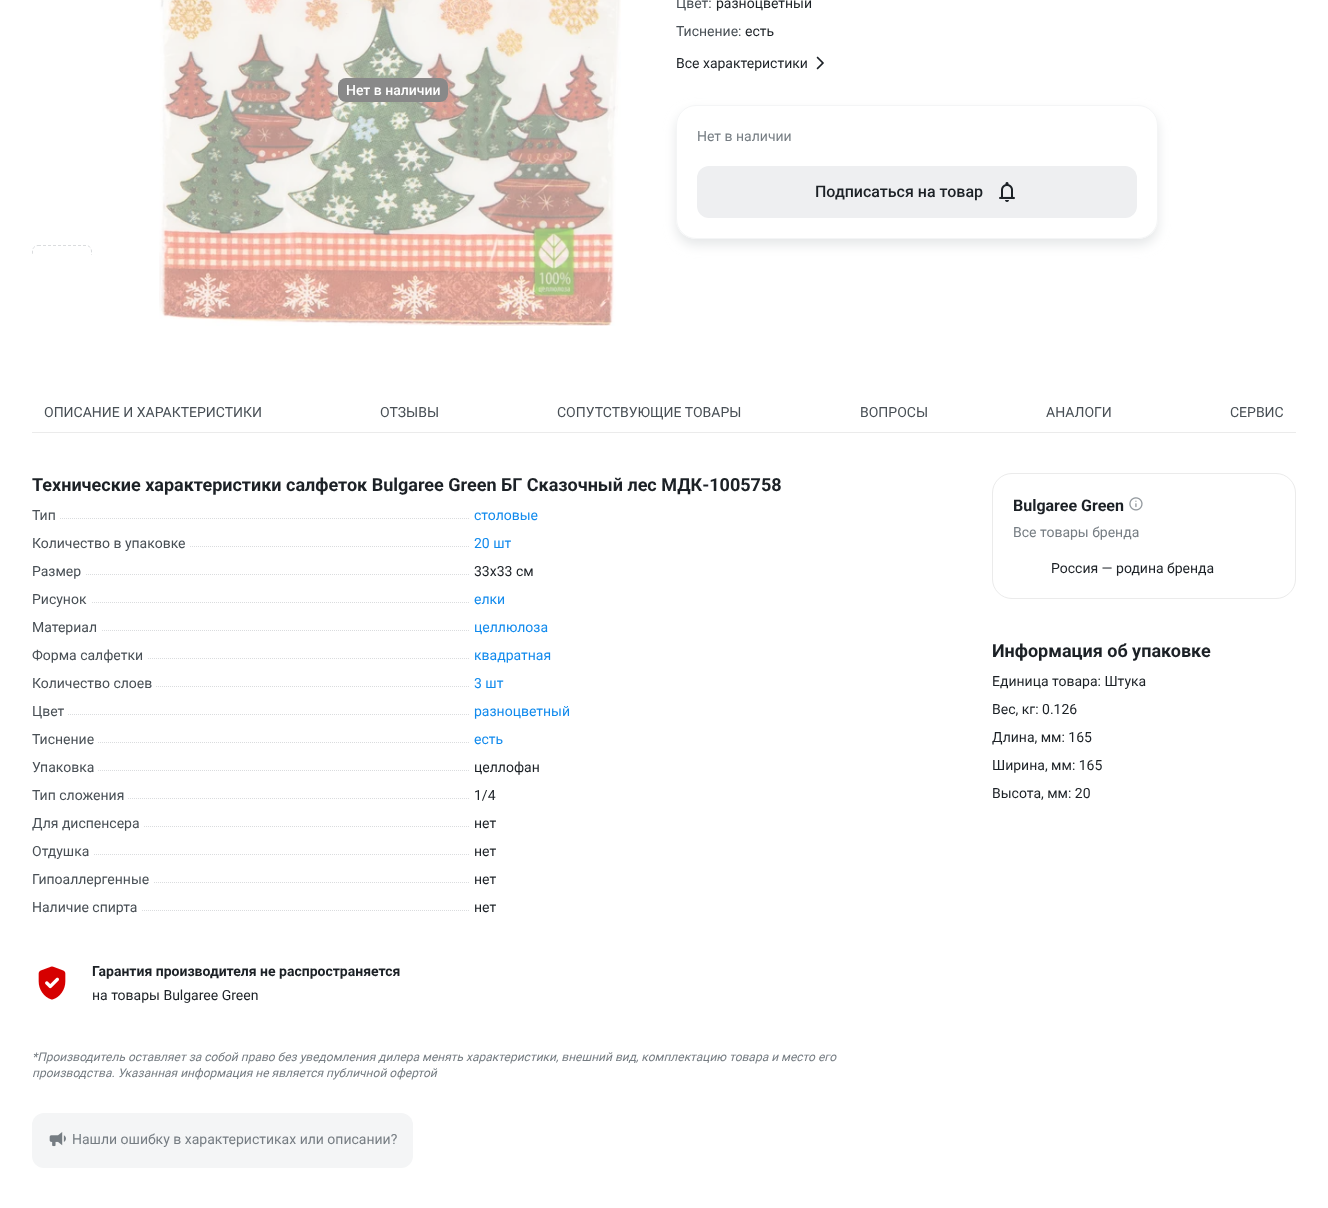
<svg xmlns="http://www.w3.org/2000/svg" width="1328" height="1208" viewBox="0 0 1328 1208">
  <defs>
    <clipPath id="clip1"><rect x="32" y="0" width="74" height="255"/></clipPath>
    <clipPath id="clip2"><path d="M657 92H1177V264H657ZM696 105H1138C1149 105 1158 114 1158 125V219C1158 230 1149 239 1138 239H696C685 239 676 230 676 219V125C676 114 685 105 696 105Z" clip-rule="evenodd"/></clipPath>
    <filter id="blur1" x="-50%" y="-200%" width="200%" height="500%"><feGaussianBlur stdDeviation="6"/></filter>
  </defs>
  <rect width="100%" height="100%" fill="#ffffff"/>
  <image x="159" y="0" width="462" height="326" href="img1.png"/>
  <rect x="338" y="78" width="110" height="24" rx="8" fill="#898989"/>
  <text x="346" y="95" font-family="Roboto" font-size="14" font-weight="500" fill="#ffffff">Нет в наличии</text>
  <g clip-path="url(#clip1)">
    <path d="M38 245.5H86C89 245.5 91.5 248 91.5 251V299C91.5 302 89 304.5 86 304.5H38C35 304.5 32.5 302 32.5 299V251C32.5 248 35 245.5 38 245.5Z" fill="none" stroke="#dadcde" stroke-dasharray="3 2"/>
  </g>
  <text x="676" y="8" font-family="Roboto" font-size="14" fill="#484f55">Цвет:</text>
  <text x="716" y="8" font-family="Roboto" font-size="14" fill="#1c2126">разноцветный</text>
  <text x="676" y="36" font-family="Roboto" font-size="14" fill="#484f55">Тиснение:</text>
  <text x="745" y="36" font-family="Roboto" font-size="14" fill="#1c2126">есть</text>
  <text x="676" y="68" font-family="Roboto" font-size="14" fill="#1c2126">Все характеристики</text>
  <image x="816" y="56" width="8" height="14" href="img2.png"/>
  <g clip-path="url(#clip2)">
    <rect x="676" y="111" width="482" height="134" rx="20" fill="#e5e7e8" filter="url(#blur1)"/>
  </g>
  <rect x="676.5" y="105.5" width="481" height="133" rx="19.5" fill="none" stroke="#f4f5f6"/>
  <text x="697" y="141" font-family="Roboto" font-size="14" fill="#767d83">Нет в наличии</text>
  <rect x="697" y="166" width="440" height="52" rx="12" fill="#eeeff1"/>
  <text x="815" y="197" font-family="Roboto" font-size="16" font-weight="500" fill="#1c2126">Подписаться на товар</text>
  <image x="999" y="182" width="16" height="20" href="img3.png"/>
  <rect x="32" y="432" width="1264" height="1" fill="#ebebeb"/>
  <text x="44" y="417" font-family="Roboto" font-size="14" fill="#484f55">ОПИСАНИЕ И ХАРАКТЕРИСТИКИ</text>
  <text x="380" y="417" font-family="Roboto" font-size="14" fill="#484f55">ОТЗЫВЫ</text>
  <text x="557" y="417" font-family="Roboto" font-size="14" fill="#484f55">СОПУТСТВУЮЩИЕ ТОВАРЫ</text>
  <text x="860" y="417" font-family="Roboto" font-size="14" fill="#484f55">ВОПРОСЫ</text>
  <text x="1046" y="417" font-family="Roboto" font-size="14" fill="#484f55">АНАЛОГИ</text>
  <text x="1230" y="417" font-family="Roboto" font-size="14" fill="#484f55">СЕРВИС</text>
  <text x="32" y="491" font-family="Roboto" font-size="18" font-weight="bold" fill="#1c2126">Технические характеристики салфеток Bulgaree Green БГ Сказочный лес МДК-1005758</text>
  <path d="M32 518.5H470" fill="none" stroke="#dadcde" stroke-dasharray="1 1"/>
  <rect x="32" y="518" width="27" height="1" fill="#ffffff"/>
  <text x="32" y="520" font-family="Roboto" font-size="14" fill="#484f55">Тип</text>
  <text x="474" y="520" font-family="Roboto" font-size="14" fill="#118aed">столовые</text>
  <path d="M32 546.5H470" fill="none" stroke="#dadcde" stroke-dasharray="1 1"/>
  <rect x="32" y="546" width="157" height="1" fill="#ffffff"/>
  <text x="32" y="548" font-family="Roboto" font-size="14" fill="#484f55">Количество в упаковке</text>
  <text x="474" y="548" font-family="Roboto" font-size="14" fill="#118aed">20 шт</text>
  <path d="M32 574.5H470" fill="none" stroke="#dadcde" stroke-dasharray="1 1"/>
  <rect x="32" y="574" width="53" height="1" fill="#ffffff"/>
  <text x="32" y="576" font-family="Roboto" font-size="14" fill="#484f55">Размер</text>
  <text x="474" y="576" font-family="Roboto" font-size="14" fill="#1c2126">33х33 см</text>
  <path d="M32 602.5H470" fill="none" stroke="#dadcde" stroke-dasharray="1 1"/>
  <rect x="32" y="602" width="59" height="1" fill="#ffffff"/>
  <text x="32" y="604" font-family="Roboto" font-size="14" fill="#484f55">Рисунок</text>
  <text x="474" y="604" font-family="Roboto" font-size="14" fill="#118aed">елки</text>
  <path d="M32 630.5H470" fill="none" stroke="#dadcde" stroke-dasharray="1 1"/>
  <rect x="32" y="630" width="69" height="1" fill="#ffffff"/>
  <text x="32" y="632" font-family="Roboto" font-size="14" fill="#484f55">Материал</text>
  <text x="474" y="632" font-family="Roboto" font-size="14" fill="#118aed">целлюлоза</text>
  <path d="M32 658.5H470" fill="none" stroke="#dadcde" stroke-dasharray="1 1"/>
  <rect x="32" y="658" width="115" height="1" fill="#ffffff"/>
  <text x="32" y="660" font-family="Roboto" font-size="14" fill="#484f55">Форма салфетки</text>
  <text x="474" y="660" font-family="Roboto" font-size="14" fill="#118aed">квадратная</text>
  <path d="M32 686.5H470" fill="none" stroke="#dadcde" stroke-dasharray="1 1"/>
  <rect x="32" y="686" width="123" height="1" fill="#ffffff"/>
  <text x="32" y="688" font-family="Roboto" font-size="14" fill="#484f55">Количество слоев</text>
  <text x="474" y="688" font-family="Roboto" font-size="14" fill="#118aed">3 шт</text>
  <path d="M32 714.5H470" fill="none" stroke="#dadcde" stroke-dasharray="1 1"/>
  <rect x="32" y="714" width="35" height="1" fill="#ffffff"/>
  <text x="32" y="716" font-family="Roboto" font-size="14" fill="#484f55">Цвет</text>
  <text x="474" y="716" font-family="Roboto" font-size="14" fill="#118aed">разноцветный</text>
  <path d="M32 742.5H470" fill="none" stroke="#dadcde" stroke-dasharray="1 1"/>
  <rect x="32" y="742" width="65" height="1" fill="#ffffff"/>
  <text x="32" y="744" font-family="Roboto" font-size="14" fill="#484f55">Тиснение</text>
  <text x="474" y="744" font-family="Roboto" font-size="14" fill="#118aed">есть</text>
  <path d="M32 770.5H470" fill="none" stroke="#dadcde" stroke-dasharray="1 1"/>
  <rect x="32" y="770" width="65" height="1" fill="#ffffff"/>
  <text x="32" y="772" font-family="Roboto" font-size="14" fill="#484f55">Упаковка</text>
  <text x="474" y="772" font-family="Roboto" font-size="14" fill="#1c2126">целлофан</text>
  <path d="M32 798.5H470" fill="none" stroke="#dadcde" stroke-dasharray="1 1"/>
  <rect x="32" y="798" width="95" height="1" fill="#ffffff"/>
  <text x="32" y="800" font-family="Roboto" font-size="14" fill="#484f55">Тип сложения</text>
  <text x="474" y="800" font-family="Roboto" font-size="14" fill="#1c2126">1/4</text>
  <path d="M32 826.5H470" fill="none" stroke="#dadcde" stroke-dasharray="1 1"/>
  <rect x="32" y="826" width="111" height="1" fill="#ffffff"/>
  <text x="32" y="828" font-family="Roboto" font-size="14" fill="#484f55">Для диспенсера</text>
  <text x="474" y="828" font-family="Roboto" font-size="14" fill="#1c2126">нет</text>
  <path d="M32 854.5H470" fill="none" stroke="#dadcde" stroke-dasharray="1 1"/>
  <rect x="32" y="854" width="61" height="1" fill="#ffffff"/>
  <text x="32" y="856" font-family="Roboto" font-size="14" fill="#484f55">Отдушка</text>
  <text x="474" y="856" font-family="Roboto" font-size="14" fill="#1c2126">нет</text>
  <path d="M32 882.5H470" fill="none" stroke="#dadcde" stroke-dasharray="1 1"/>
  <rect x="32" y="882" width="121" height="1" fill="#ffffff"/>
  <text x="32" y="884" font-family="Roboto" font-size="14" fill="#484f55">Гипоаллергенные</text>
  <text x="474" y="884" font-family="Roboto" font-size="14" fill="#1c2126">нет</text>
  <path d="M32 910.5H470" fill="none" stroke="#dadcde" stroke-dasharray="1 1"/>
  <rect x="32" y="910" width="109" height="1" fill="#ffffff"/>
  <text x="32" y="912" font-family="Roboto" font-size="14" fill="#484f55">Наличие спирта</text>
  <text x="474" y="912" font-family="Roboto" font-size="14" fill="#1c2126">нет</text>
  <image x="38" y="966" width="28" height="34" href="img4.png"/>
  <text x="92" y="976" font-family="Roboto" font-size="14" font-weight="bold" fill="#1c2126">Гарантия производителя не распространяется</text>
  <text x="92" y="1000" font-family="Roboto" font-size="14" fill="#1c2126">на товары Bulgaree Green</text>
  <text x="32" y="1061" font-family="Roboto" font-size="12" font-style="italic" fill="#767d83">*Производитель оставляет за собой право без уведомления дилера менять характеристики, внешний вид, комплектацию товара и место его</text>
  <text x="32" y="1077" font-family="Roboto" font-size="12" font-style="italic" fill="#767d83">производства. Указанная информация не является публичной офертой</text>
  <rect x="32" y="1113" width="381" height="55" rx="12" fill="#f4f5f6"/>
  <image x="49" y="1132" width="17" height="15" href="img5.png"/>
  <text x="72" y="1144" font-family="Roboto" font-size="14" fill="#767d83">Нашли ошибку в характеристиках или описании?</text>
  <rect x="992.5" y="473.5" width="303" height="125" rx="19.5" fill="none" stroke="#ebebeb"/>
  <text x="1013" y="511" font-family="Roboto" font-size="16" font-weight="bold" fill="#1c2126">Bulgaree Green</text>
  <image x="1129" y="497" width="14" height="14" href="img6.png"/>
  <text x="1013" y="537" font-family="Roboto" font-size="14" fill="#767d83">Все товары бренда</text>
  <text x="1051" y="573" font-family="Roboto" font-size="14" fill="#1c2126">Россия — родина бренда</text>
  <text x="992" y="657" font-family="Roboto" font-size="18" font-weight="bold" fill="#1c2126">Информация об упаковке</text>
  <text x="992" y="686" font-family="Roboto" font-size="14" fill="#1c2126">Единица товара: Штука</text>
  <text x="992" y="714" font-family="Roboto" font-size="14" fill="#1c2126">Вес, кг: 0.126</text>
  <text x="992" y="742" font-family="Roboto" font-size="14" fill="#1c2126">Длина, мм: 165</text>
  <text x="992" y="770" font-family="Roboto" font-size="14" fill="#1c2126">Ширина, мм: 165</text>
  <text x="992" y="798" font-family="Roboto" font-size="14" fill="#1c2126">Высота, мм: 20</text>
</svg>
